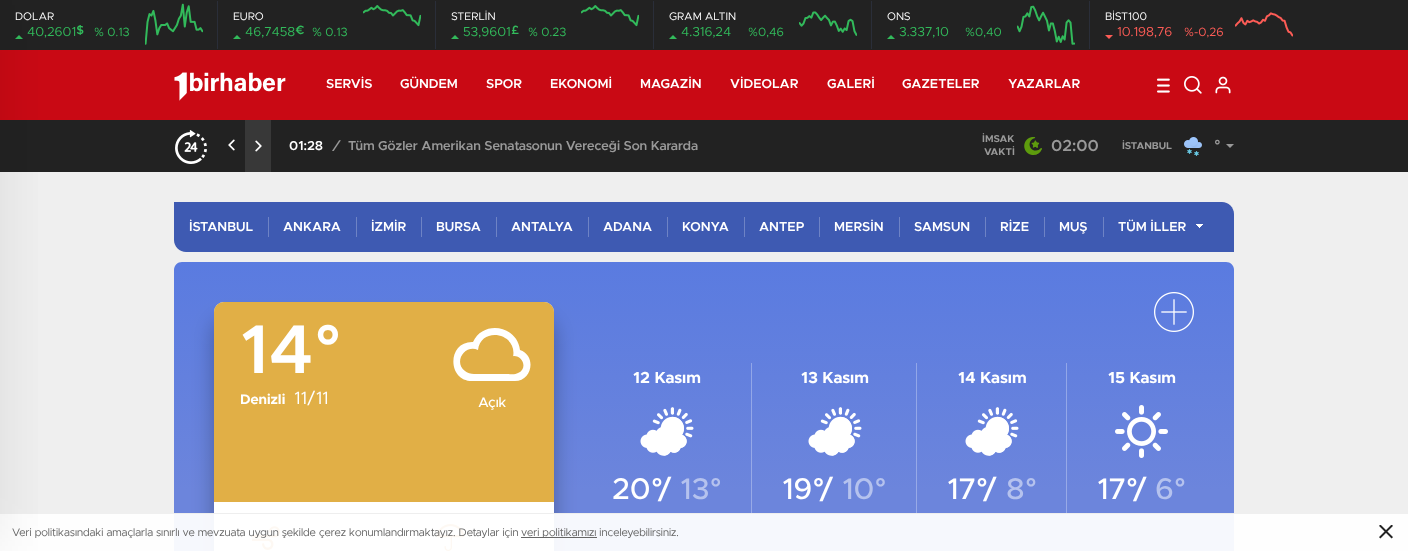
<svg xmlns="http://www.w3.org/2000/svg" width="1408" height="551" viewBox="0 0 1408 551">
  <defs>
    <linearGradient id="g1" gradientUnits="userSpaceOnUse" x1="704" y1="262" x2="704" y2="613"><stop offset="0" stop-color="#5a7be0"/><stop offset="0.65" stop-color="#6c85dc"/><stop offset="1" stop-color="#6c85dc"/></linearGradient>
    <filter id="blur1" x="-50%" y="-200%" width="200%" height="500%"><feGaussianBlur stdDeviation="10.5"/></filter>
    <filter id="blur2" x="-50%" y="-200%" width="200%" height="500%"><feGaussianBlur stdDeviation="30"/></filter>
    <linearGradient id="g2" gradientUnits="userSpaceOnUse" x1="704" y1="262" x2="704" y2="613"><stop offset="0" stop-color="#8ca3e9"/><stop offset="0.65" stop-color="#98aae7"/><stop offset="1" stop-color="#98aae7"/></linearGradient>
  </defs>
  <rect width="100%" height="100%" fill="#efefef"/>
  <rect x="0" y="0" width="1408" height="50" fill="#222222"/>
  <path d="M23 39H15L19 35Z" fill="#32ba5b"/>
  <rect x="0" y="50" width="1408" height="70" fill="#c90914"/>
  <rect x="0" y="120" width="1408" height="52" fill="#222222"/>
  <path d="M182 262H1226C1230.5 262 1234 265.5 1234 270V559H174V270C174 265.5 177.5 262 182 262Z" fill="url(#g1)"/>
  <rect x="214" y="321" width="340" height="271" rx="10" fill="#0c0407" fill-opacity="0.29" filter="url(#blur1)"/>
  <rect x="214" y="302" width="340" height="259" rx="10" fill="#ffffff"/>
  <image x="252" y="526" width="28" height="24" href="img17.png"/>
  <image x="437" y="524" width="27" height="27" href="img18.png"/>
  <rect x="0" y="514" width="1408" height="37" fill="#ffffff" fill-opacity="0.94"/>
  <rect x="-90" y="5" width="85" height="541" fill="#000000" fill-opacity="0.1" filter="url(#blur2)"/>
  <text x="15" y="20" font-family="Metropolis" font-size="11" fill="#ffffff">DOLAR</text>
  <text x="27" y="36" font-family="Metropolis" font-size="13" fill="#32ba5b">40,2601</text>
  <text x="76" y="34" font-family="Metropolis" font-size="12" font-weight="600" fill="#32ba5b">$</text>
  <text x="94" y="36" font-family="Metropolis" font-size="12" fill="#32ba5b">% 0.13</text>
  <image x="145" y="3" width="58" height="42" href="img1.png"/>
  <rect x="217" y="1" width="1" height="48" fill="#2a2e39"/>
  <text x="233" y="20" font-family="Metropolis" font-size="11" fill="#ffffff">EURO</text>
  <path d="M241 39H233L237 35Z" fill="#32ba5b"/>
  <text x="245" y="36" font-family="Metropolis" font-size="13" fill="#32ba5b">46,7458</text>
  <text x="295" y="34" font-family="Metropolis" font-size="12" font-weight="600" fill="#32ba5b">€</text>
  <text x="312" y="36" font-family="Metropolis" font-size="12" fill="#32ba5b">% 0.13</text>
  <image x="363" y="5" width="58" height="22" href="img2.png"/>
  <rect x="435" y="1" width="1" height="48" fill="#2a2e39"/>
  <text x="451" y="20" font-family="Metropolis" font-size="11" fill="#ffffff">STERLİN</text>
  <path d="M459 39H451L455 35Z" fill="#32ba5b"/>
  <text x="463" y="36" font-family="Metropolis" font-size="13" fill="#32ba5b">53,9601</text>
  <text x="511" y="34" font-family="Metropolis" font-size="12" font-weight="600" fill="#32ba5b">£</text>
  <text x="528" y="36" font-family="Metropolis" font-size="12" fill="#32ba5b">% 0.23</text>
  <image x="581" y="5" width="58" height="22" href="img2.png"/>
  <rect x="653" y="1" width="1" height="48" fill="#2a2e39"/>
  <text x="669" y="20" font-family="Metropolis" font-size="11" fill="#ffffff">GRAM ALTIN</text>
  <path d="M677 39H669L673 35Z" fill="#32ba5b"/>
  <text x="681" y="36" font-family="Metropolis" font-size="13" fill="#32ba5b">4.316,24</text>
  <text x="748" y="36" font-family="Metropolis" font-size="12" fill="#32ba5b">%0,46</text>
  <image x="799" y="11" width="58" height="25" href="img3.png"/>
  <rect x="871" y="1" width="1" height="48" fill="#2a2e39"/>
  <text x="887" y="20" font-family="Metropolis" font-size="11" fill="#ffffff">ONS</text>
  <path d="M895 39H887L891 35Z" fill="#32ba5b"/>
  <text x="899" y="36" font-family="Metropolis" font-size="13" fill="#32ba5b">3.337,10</text>
  <text x="965" y="36" font-family="Metropolis" font-size="12" fill="#32ba5b">%0,40</text>
  <image x="1017" y="5" width="58" height="40" href="img4.png"/>
  <rect x="1089" y="1" width="1" height="48" fill="#2a2e39"/>
  <text x="1105" y="20" font-family="Metropolis" font-size="11" fill="#ffffff">BİST100</text>
  <path d="M1105 35H1113L1109 39Z" fill="#fd5c56"/>
  <text x="1117" y="36" font-family="Metropolis" font-size="13" fill="#fd5c56">10.198,76</text>
  <text x="1184" y="36" font-family="Metropolis" font-size="12" fill="#fd5c56">%-0,26</text>
  <image x="1235" y="12" width="58" height="25" href="img5.png"/>
  <image x="174" y="72" width="112" height="29" href="img6.png"/>
  <text x="326" y="88" font-family="Metropolis" font-size="13" font-weight="600" fill="#ffffff">SERVİS</text>
  <text x="400" y="88" font-family="Metropolis" font-size="13" font-weight="600" fill="#ffffff">GÜNDEM</text>
  <text x="486" y="88" font-family="Metropolis" font-size="13" font-weight="600" fill="#ffffff">SPOR</text>
  <text x="550" y="88" font-family="Metropolis" font-size="13" font-weight="600" fill="#ffffff">EKONOMİ</text>
  <text x="640" y="88" font-family="Metropolis" font-size="13" font-weight="600" fill="#ffffff">MAGAZİN</text>
  <text x="730" y="88" font-family="Metropolis" font-size="13" font-weight="600" fill="#ffffff">VİDEOLAR</text>
  <text x="827" y="88" font-family="Metropolis" font-size="13" font-weight="600" fill="#ffffff">GALERİ</text>
  <text x="902" y="88" font-family="Metropolis" font-size="13" font-weight="600" fill="#ffffff">GAZETELER</text>
  <text x="1008" y="88" font-family="Metropolis" font-size="13" font-weight="600" fill="#ffffff">YAZARLAR</text>
  <image x="1157" y="78" width="13" height="15" href="img7.png"/>
  <image x="1184" y="76" width="18" height="18" href="img8.png"/>
  <image x="1215" y="76" width="16" height="18" href="img9.png"/>
  <image x="175" y="130" width="32" height="34" href="img10.png"/>
  <image x="228" y="139" width="7" height="12" href="img11.png"/>
  <rect x="245" y="120" width="26" height="52" fill="#383838"/>
  <image x="255" y="140" width="7" height="12" href="img12.png"/>
  <text x="289" y="150" font-family="Metropolis" font-size="13" font-weight="600" fill="#ffffff">01:28</text>
  <text x="332" y="150" font-family="Metropolis" font-size="13" font-weight="600" font-style="italic" fill="#999999">/</text>
  <text x="348" y="150" font-family="Metropolis" font-size="13" font-weight="600" fill="#999999">Tüm Gözler Amerikan Senatasonun Vereceği Son Kararda</text>
  <text x="982" y="142" font-family="Metropolis" font-size="10" font-weight="bold" fill="#999999">İMSAK</text>
  <text x="984" y="155" font-family="Metropolis" font-size="10" font-weight="bold" fill="#999999">VAKTİ</text>
  <image x="1024" y="137" width="18" height="18" href="img13.png"/>
  <text x="1051" y="151" font-family="Metropolis" font-size="16" font-weight="600" fill="#999999">02:00</text>
  <text x="1122" y="149" font-family="Metropolis" font-size="10" font-weight="bold" fill="#999999">İSTANBUL</text>
  <image x="1184" y="137" width="18" height="19" href="img14.png"/>
  <text x="1214" y="151" font-family="Metropolis" font-size="16" font-weight="600" fill="#999999">°</text>
  <path d="M1230 148L1226 144H1234Z" fill="#999999"/>
  <path d="M174 202H1222C1228.5 202 1234 207.5 1234 214V252H186C179.5 252 174 246.5 174 240Z" fill="#3e5ab2"/>
  <text x="189" y="231" font-family="Metropolis" font-size="13" font-weight="600" fill="#ffffff">İSTANBUL</text>
  <rect x="268" y="217" width="1" height="20" fill="#6e83c5"/>
  <text x="283" y="231" font-family="Metropolis" font-size="13" font-weight="600" fill="#ffffff">ANKARA</text>
  <rect x="356" y="217" width="1" height="20" fill="#6e83c5"/>
  <text x="371" y="231" font-family="Metropolis" font-size="13" font-weight="600" fill="#ffffff">İZMİR</text>
  <rect x="421" y="217" width="1" height="20" fill="#6e83c5"/>
  <text x="436" y="231" font-family="Metropolis" font-size="13" font-weight="600" fill="#ffffff">BURSA</text>
  <rect x="496" y="217" width="1" height="20" fill="#6e83c5"/>
  <text x="511" y="231" font-family="Metropolis" font-size="13" font-weight="600" fill="#ffffff">ANTALYA</text>
  <rect x="588" y="217" width="1" height="20" fill="#6e83c5"/>
  <text x="603" y="231" font-family="Metropolis" font-size="13" font-weight="600" fill="#ffffff">ADANA</text>
  <rect x="667" y="217" width="1" height="20" fill="#6e83c5"/>
  <text x="682" y="231" font-family="Metropolis" font-size="13" font-weight="600" fill="#ffffff">KONYA</text>
  <rect x="744" y="217" width="1" height="20" fill="#6e83c5"/>
  <text x="759" y="231" font-family="Metropolis" font-size="13" font-weight="600" fill="#ffffff">ANTEP</text>
  <rect x="819" y="217" width="1" height="20" fill="#6e83c5"/>
  <text x="834" y="231" font-family="Metropolis" font-size="13" font-weight="600" fill="#ffffff">MERSİN</text>
  <rect x="899" y="217" width="1" height="20" fill="#6e83c5"/>
  <text x="914" y="231" font-family="Metropolis" font-size="13" font-weight="600" fill="#ffffff">SAMSUN</text>
  <rect x="985" y="217" width="1" height="20" fill="#6e83c5"/>
  <text x="1000" y="231" font-family="Metropolis" font-size="13" font-weight="600" fill="#ffffff">RİZE</text>
  <rect x="1044" y="217" width="1" height="20" fill="#6e83c5"/>
  <text x="1059" y="231" font-family="Metropolis" font-size="13" font-weight="600" fill="#ffffff">MUŞ</text>
  <rect x="1103" y="217" width="1" height="20" fill="#6e83c5"/>
  <text x="1118" y="231" font-family="Metropolis" font-size="13" font-weight="600" fill="#ffffff">TÜM İLLER</text>
  <image x="1196" y="224" width="7" height="4" href="img15.png"/>
  <rect x="1066" y="363" width="1" height="150" fill="url(#g2)"/>
  <rect x="916" y="363" width="1" height="150" fill="url(#g2)"/>
  <rect x="751" y="363" width="1" height="150" fill="url(#g2)"/>
  <image x="1154" y="292" width="40" height="40" href="img16.png"/>
  <path d="M224 302H544C549.5 302 554 306.5 554 312V502H214V312C214 306.5 218.5 302 224 302Z" fill="#e1af46"/>
  <text x="240" y="373" font-family="Metropolis" font-size="69" font-weight="600" fill="#ffffff">14°</text>
  <text x="240" y="404" font-family="Metropolis" font-size="14" font-weight="bold" fill="#ffffff">Denizli</text>
  <text x="294" y="404" font-family="Metropolis" font-size="18" fill="#ffffff">11/11</text>
  <path d="M515 381H472C447 381 447 341 473 342C483 320 517 325 520 350C537 356 532 381 515 381ZM474 374H507C510 374 515 375 518 373C528 369 523 355 513 356V357C518 333 481 326 478 350C465 344 453 362 465 371C467 373 471 374 474 374Z" fill="#ffffff"/>
  <text x="478" y="407" font-family="Metropolis" font-size="14" font-weight="500" fill="#ffffff">Açık</text>
  <text x="633" y="383" font-family="Metropolis" font-size="16" font-weight="bold" fill="#ffffff">12 Kasım</text>
  <image x="640" y="407" width="54" height="49" href="img19.png"/>
  <text x="612" y="499" font-family="Metropolis" font-size="30" font-weight="500" fill="#ffffff">20°/</text>
  <text x="680" y="499" font-family="Metropolis" font-size="30" font-weight="500" fill="#b5c2ee">13°</text>
  <text x="801" y="383" font-family="Metropolis" font-size="16" font-weight="bold" fill="#ffffff">13 Kasım</text>
  <image x="808" y="407" width="54" height="49" href="img19.png"/>
  <text x="782" y="499" font-family="Metropolis" font-size="30" font-weight="500" fill="#ffffff">19°/</text>
  <text x="842" y="499" font-family="Metropolis" font-size="30" font-weight="500" fill="#b5c2ee">10°</text>
  <text x="958" y="383" font-family="Metropolis" font-size="16" font-weight="bold" fill="#ffffff">14 Kasım</text>
  <image x="965" y="407" width="54" height="49" href="img19.png"/>
  <text x="947" y="499" font-family="Metropolis" font-size="30" font-weight="500" fill="#ffffff">17°/</text>
  <text x="1006" y="499" font-family="Metropolis" font-size="30" font-weight="500" fill="#b5c2ee">8°</text>
  <text x="1108" y="383" font-family="Metropolis" font-size="16" font-weight="bold" fill="#ffffff">15 Kasım</text>
  <image x="1115" y="405" width="53" height="53" href="img20.png"/>
  <text x="1097" y="499" font-family="Metropolis" font-size="30" font-weight="500" fill="#ffffff">17°/</text>
  <text x="1155" y="499" font-family="Metropolis" font-size="30" font-weight="500" fill="#b5c2ee">6°</text>
  <rect x="174" y="513" width="1060" height="1" fill="#eeeeee"/>
  <text x="12" y="536" font-family="Metropolis" font-size="11" fill="#666666">Veri politikasındaki amaçlarla sınırlı ve mevzuata uygun şekilde çerez konumlandırmaktayız. Detaylar için</text>
  <rect x="521" y="537" width="76" height="1" fill="#666666"/>
  <text x="521" y="536" font-family="Metropolis" font-size="11" fill="#666666">veri politikamızı inceleyebilirsiniz.</text>
  <image x="1379" y="525" width="14" height="14" href="img21.png"/>
</svg>
